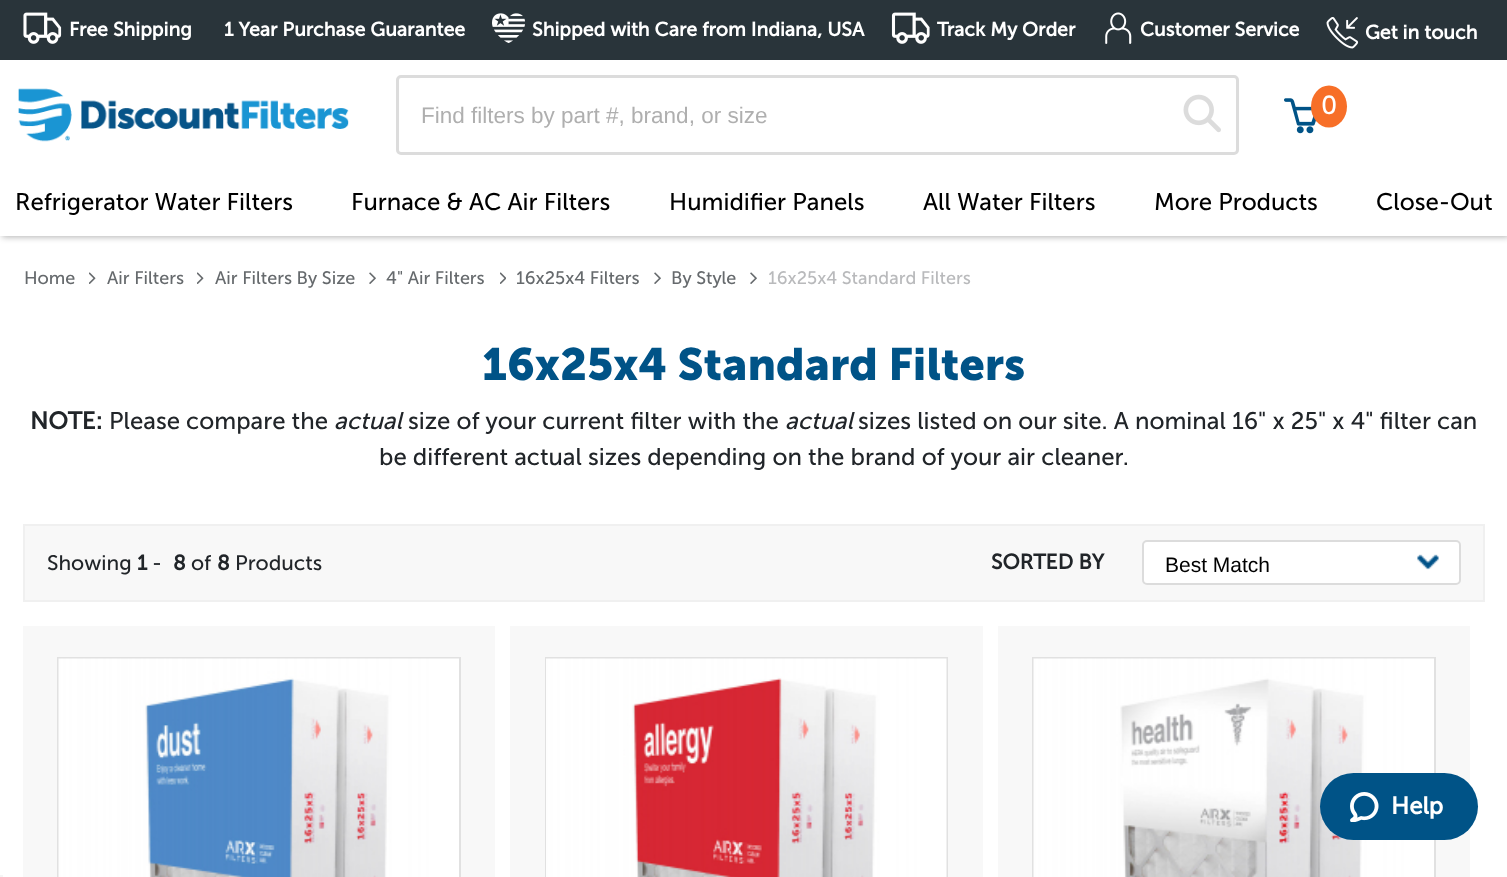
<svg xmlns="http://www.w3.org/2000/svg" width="1507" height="877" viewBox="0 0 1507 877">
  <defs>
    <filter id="blur1" x="-50%" y="-200%" width="200%" height="500%"><feGaussianBlur stdDeviation="3"/></filter>
  </defs>
  <rect width="100%" height="100%" fill="#ffffff"/>
  <rect x="2" y="2" width="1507" height="235" fill="#000000" fill-opacity="0.3" filter="url(#blur1)"/>
  <rect x="0" y="60" width="1507" height="176" fill="#ffffff"/>
  <rect x="0" y="0" width="1507" height="60" fill="#29343a"/>
  <image x="23" y="12" width="39" height="32" href="img1.png"/>
  <text x="69" y="36" font-family="Museo Sans" font-size="19.5" font-weight="bold" fill="#ffffff">Free Shipping</text>
  <text x="224" y="36" font-family="Museo Sans" font-size="19.5" font-weight="bold" fill="#ffffff">1 Year Purchase Guarantee</text>
  <image x="492" y="13" width="33" height="30" href="img2.png"/>
  <text x="532" y="36" font-family="Museo Sans" font-size="19.5" font-weight="bold" fill="#ffffff">Shipped with Care from Indiana, USA</text>
  <image x="891" y="12" width="39" height="32" href="img3.png"/>
  <text x="937" y="36" font-family="Museo Sans" font-size="19.5" font-weight="bold" fill="#ffffff">Track My Order</text>
  <image x="1105" y="12" width="27" height="32" href="img4.png"/>
  <text x="1140" y="36" font-family="Museo Sans" font-size="19.5" font-weight="bold" fill="#ffffff">Customer Service</text>
  <image x="1326" y="17" width="33" height="32" href="img5.png"/>
  <text x="1365" y="39" font-family="Museo Sans" font-size="19.5" font-weight="bold" fill="#ffffff">Get in touch</text>
  <image x="18" y="88" width="331" height="54" href="img6.png"/>
  <rect x="397.5" y="76.5" width="840" height="77" rx="3.5" fill="none" stroke="#dcdcdc" stroke-width="3"/>
  <text x="421" y="123" font-family="Liberation Sans" font-size="22.5" fill="#afafaf">Find filters by part #, brand, or size</text>
  <image x="1183" y="94" width="38" height="39" href="img7.png"/>
  <image x="1284" y="98" width="32" height="36" href="img8.png"/>
  <ellipse cx="1329" cy="106.5" rx="18" ry="21" fill="#f76f28"/>
  <text x="1321" y="114" font-family="Museo Sans" font-size="26" fill="#ffffff">0</text>
  <text x="15" y="210" font-family="Museo Sans" font-size="24" fill="#000000">Refrigerator Water Filters</text>
  <text x="351" y="210" font-family="Museo Sans" font-size="24" fill="#000000">Furnace &amp; AC Air Filters</text>
  <text x="669" y="210" font-family="Museo Sans" font-size="24" fill="#000000">Humidifier Panels</text>
  <text x="923" y="210" font-family="Museo Sans" font-size="24" fill="#000000">All Water Filters</text>
  <text x="1154" y="210" font-family="Museo Sans" font-size="24" fill="#000000">More Products</text>
  <text x="1376" y="210" font-family="Museo Sans" font-size="24" fill="#000000">Close-Out</text>
  <text x="24" y="284" font-family="Museo Sans" font-size="18" fill="#666a6d">Home</text>
  <image x="89" y="272" width="7" height="12" href="img9.png"/>
  <text x="107" y="284" font-family="Museo Sans" font-size="18" fill="#666a6d">Air Filters</text>
  <image x="197" y="272" width="7" height="12" href="img9.png"/>
  <text x="215" y="284" font-family="Museo Sans" font-size="18" fill="#666a6d">Air Filters By Size</text>
  <image x="369" y="272" width="7" height="12" href="img10.png"/>
  <text x="386" y="284" font-family="Museo Sans" font-size="18" fill="#666a6d">4" Air Filters</text>
  <image x="500" y="272" width="6" height="12" href="img11.png"/>
  <text x="516" y="284" font-family="Museo Sans" font-size="18" fill="#666a6d">16x25x4 Filters</text>
  <image x="654" y="272" width="7" height="12" href="img10.png"/>
  <text x="671" y="284" font-family="Museo Sans" font-size="18" fill="#666a6d">By Style</text>
  <image x="750" y="272" width="7" height="12" href="img10.png"/>
  <text x="768" y="284" font-family="Museo Sans" font-size="18" fill="#b9babc">16x25x4 Standard Filters</text>
  <text x="482" y="380" font-family="'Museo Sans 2'" font-size="45" font-weight="bold" fill="#005387">16x25x4 Standard Filters</text>
  <text x="30" y="429" font-family="Museo Sans" font-size="24" font-weight="bold" fill="#212529">NOTE:</text>
  <text x="109" y="429" font-family="Museo Sans" font-size="24" fill="#212529">Please compare the</text>
  <text x="334" y="429" font-family="Museo Sans" font-size="24" font-style="italic" fill="#212529">actual</text>
  <text x="408" y="429" font-family="Museo Sans" font-size="24" fill="#212529">size of your current filter with the</text>
  <text x="785" y="429" font-family="Museo Sans" font-size="24" font-style="italic" fill="#212529">actual</text>
  <text x="858" y="429" font-family="Museo Sans" font-size="24" fill="#212529">sizes listed on our site. A nominal 16" x 25" x 4" filter can</text>
  <text x="379" y="465" font-family="Museo Sans" font-size="24" fill="#212529">be different actual sizes depending on the brand of your air cleaner.</text>
  <rect x="24" y="525" width="1460" height="76" fill="#f8f8f8" stroke="#f0f0f0" stroke-width="2"/>
  <text x="47" y="570" font-family="Museo Sans" font-size="21" fill="#212529">Showing</text>
  <text x="137" y="570" font-family="Museo Sans" font-size="21" font-weight="bold" fill="#212529">1</text>
  <text x="152" y="570" font-family="Museo Sans" font-size="21" fill="#212529">-</text>
  <text x="173" y="570" font-family="Museo Sans" font-size="21" font-weight="bold" fill="#212529">8</text>
  <text x="191" y="570" font-family="Museo Sans" font-size="21" fill="#212529">of</text>
  <text x="217" y="570" font-family="Museo Sans" font-size="21" font-weight="bold" fill="#212529">8</text>
  <text x="235" y="570" font-family="Museo Sans" font-size="21" fill="#212529">Products</text>
  <text x="991" y="569" font-family="Museo Sans" font-size="21" font-weight="bold" fill="#212529">SORTED BY</text>
  <rect x="1143" y="542" width="317" height="42" rx="3" fill="#ffffff"/>
  <image x="1417" y="554" width="22" height="16" href="img12.png"/>
  <rect x="1143" y="541" width="317" height="43" rx="4" fill="none" stroke="#dcdcdc" stroke-width="2"/>
  <text x="1165" y="572" font-family="Liberation Sans" font-size="21" fill="#000000">Best Match</text>
  <rect x="23" y="626" width="472" height="251" fill="#f8f8f8"/>
  <rect x="58" y="658" width="402" height="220" fill="none" stroke="#e1e1e1" stroke-width="2"/>
  <image x="58" y="658" width="401" height="219" href="img13.png"/>
  <rect x="510" y="626" width="473" height="251" fill="#f8f8f8"/>
  <rect x="546" y="658" width="401" height="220" fill="none" stroke="#e1e1e1" stroke-width="2"/>
  <image x="546" y="658" width="401" height="219" href="img14.png"/>
  <rect x="998" y="626" width="472" height="251" fill="#f8f8f8"/>
  <rect x="1033" y="658" width="402" height="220" fill="none" stroke="#e1e1e1" stroke-width="2"/>
  <image x="1033" y="658" width="401" height="219" href="img15.png"/>
  <rect x="1320" y="773" width="158" height="67" rx="33.5" fill="#005387"/>
  <image x="1350" y="792" width="29" height="30" href="img16.png"/>
  <text x="1391" y="814" font-family="Museo Sans" font-size="24" font-weight="bold" fill="#ffffff">Help</text>
  <rect x="0" y="875" width="3" height="2" fill="#f5f5f5"/>
</svg>
